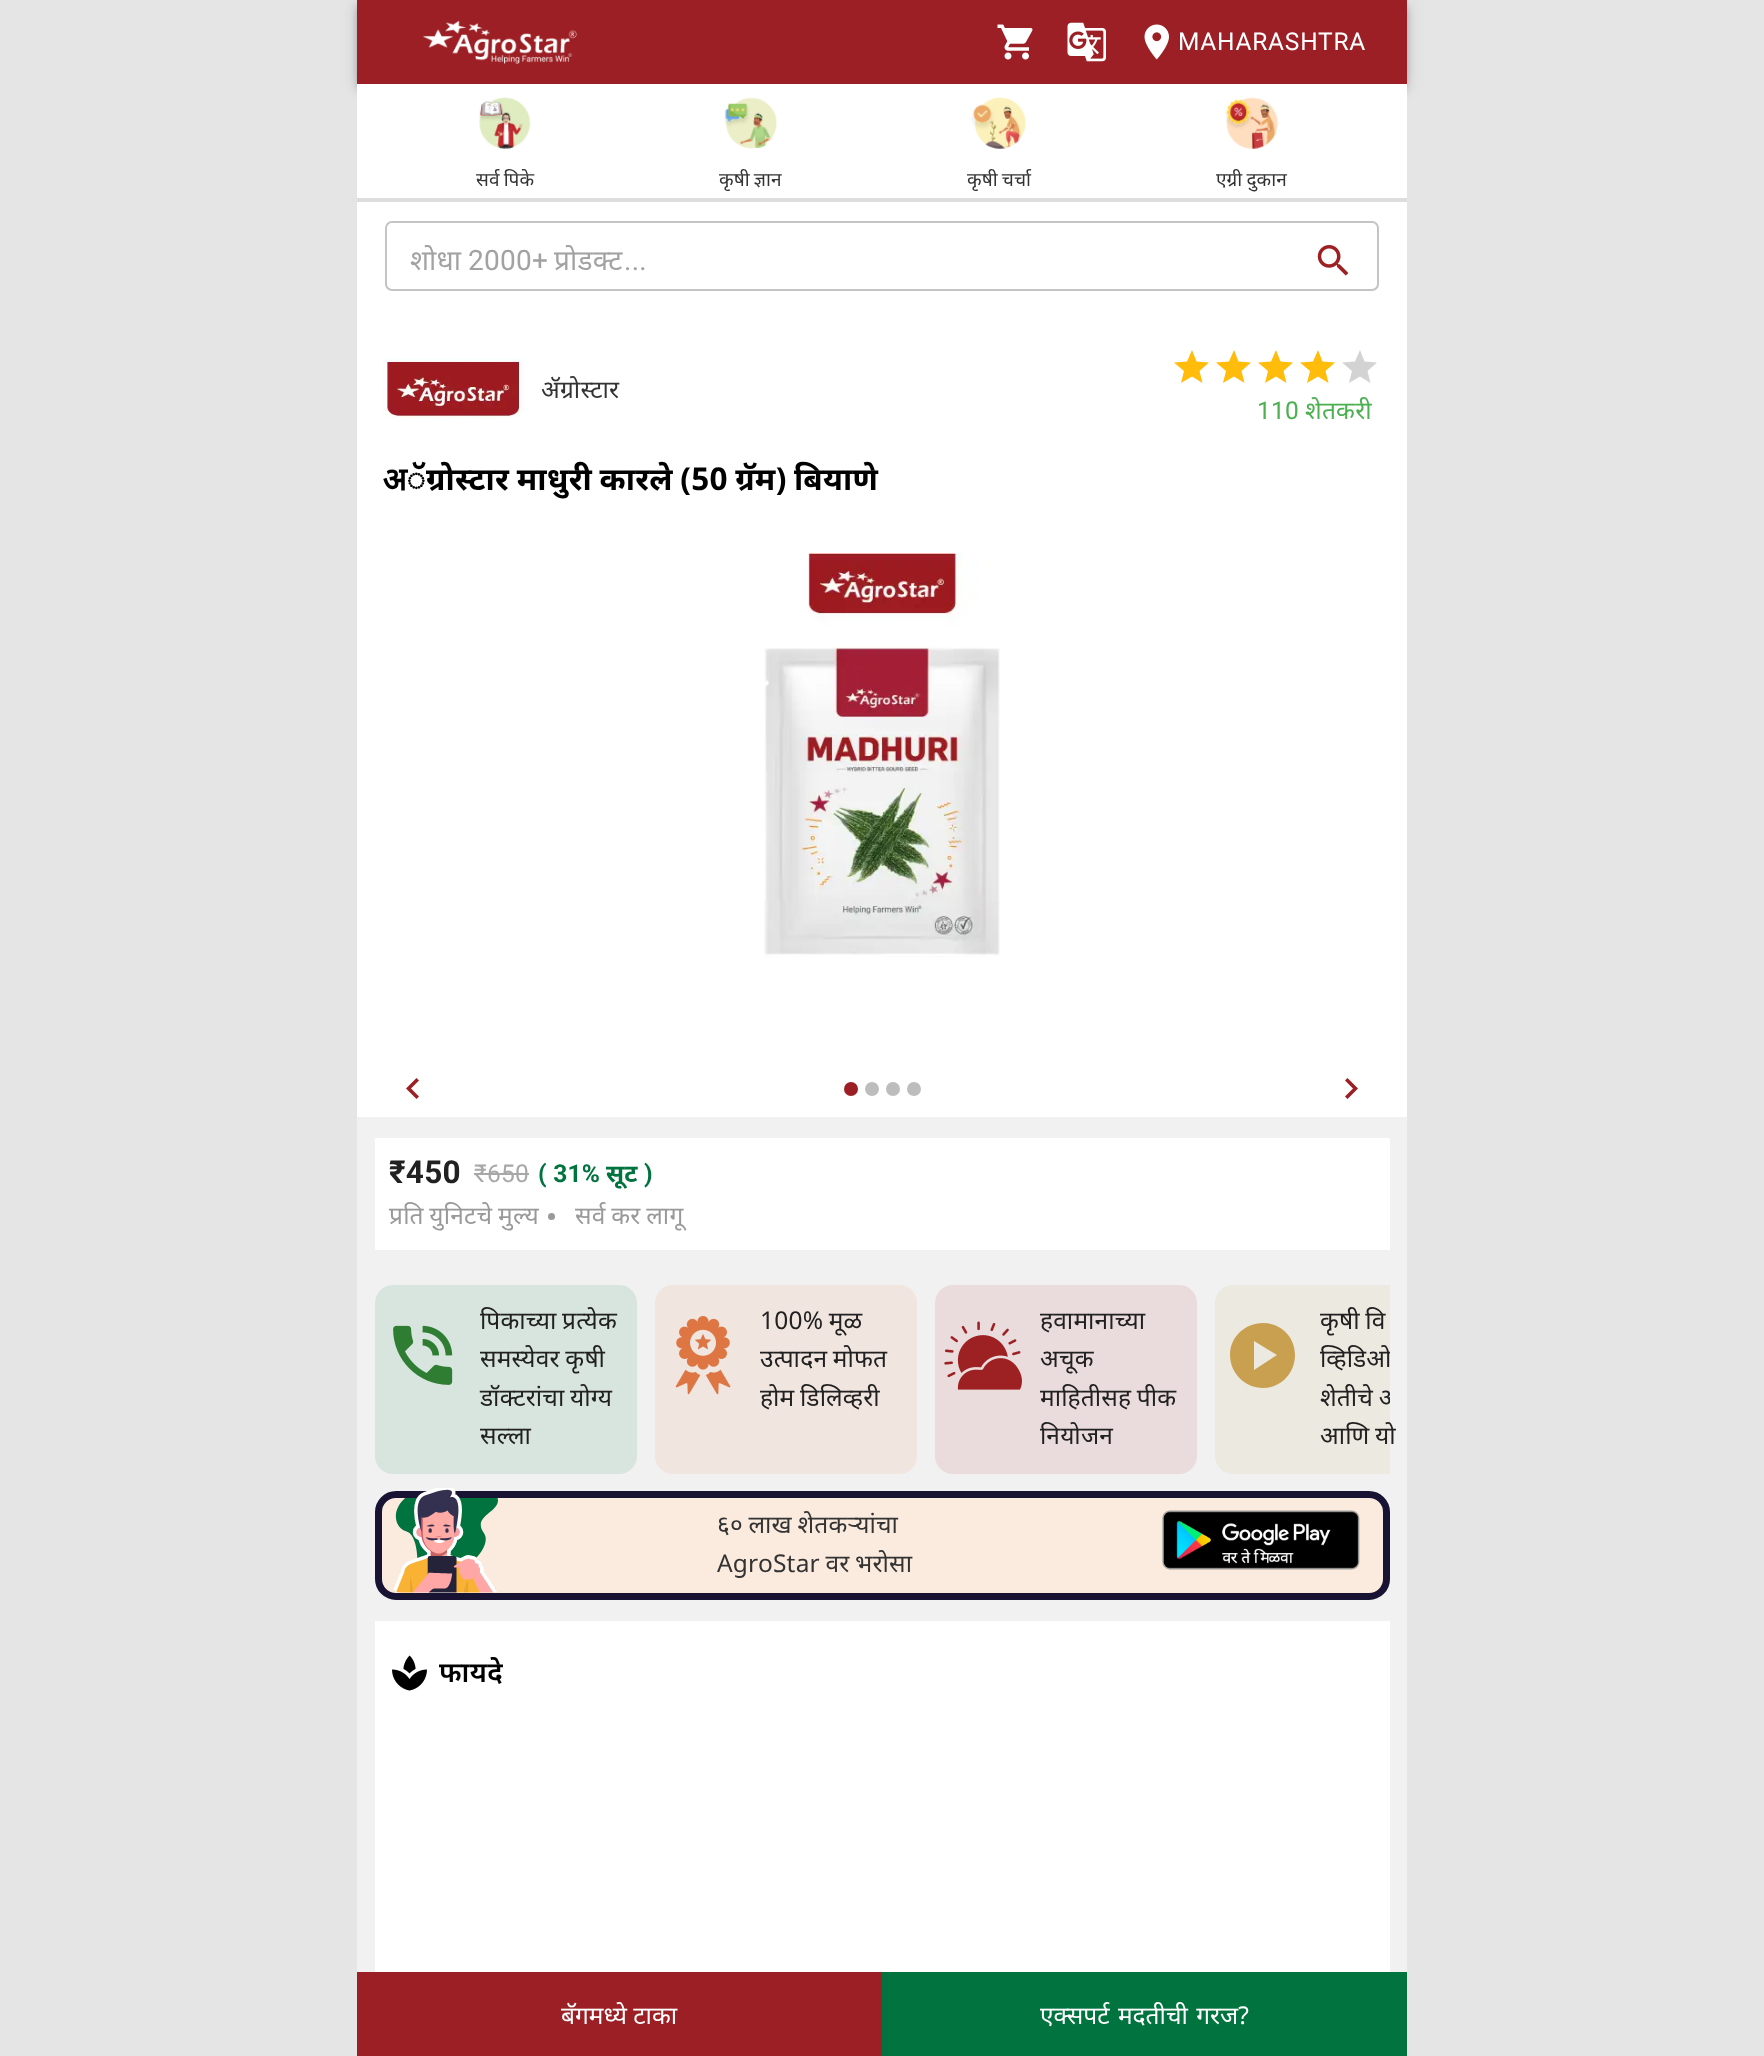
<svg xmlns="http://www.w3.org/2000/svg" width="1764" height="2056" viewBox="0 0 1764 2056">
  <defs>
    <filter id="blur1" x="-50%" y="-200%" width="200%" height="500%"><feGaussianBlur stdDeviation="9"/></filter>
    <filter id="blur2" x="-50%" y="-200%" width="200%" height="500%"><feGaussianBlur stdDeviation="4.5"/></filter>
    <filter id="blur3" x="-50%" y="-200%" width="200%" height="500%"><feGaussianBlur stdDeviation="3.5"/></filter>
    <clipPath id="clip1"><rect x="410" y="240" width="889" height="38"/></clipPath>
    <clipPath id="clip2"><rect x="375" y="1285" width="1015" height="189"/></clipPath>
  </defs>
  <rect width="100%" height="100%" fill="#e5e5e5"/>
  <rect x="357" y="2" width="1050" height="84" fill="#000000" fill-opacity="0.12" filter="url(#blur1)"/>
  <rect x="357" y="7" width="1050" height="84" fill="#000000" fill-opacity="0.14" filter="url(#blur2)"/>
  <rect x="359" y="5" width="1046" height="81" fill="#000000" fill-opacity="0.2" filter="url(#blur3)"/>
  <rect x="357" y="0" width="1050" height="84" fill="#9b1f24"/>
  <image x="422" y="20" width="155" height="44" href="img1.png"/>
  <image x="997" y="24" width="36" height="36" href="img2.png"/>
  <image x="1067" y="22" width="39" height="40" href="img3.png"/>
  <image x="1144" y="24" width="25" height="36" href="img4.png"/>
  <text x="1178" y="50" font-family="Roboto" font-size="24.5" letter-spacing="0.75" fill="#ffffff">MAHARASHTRA</text>
  <rect x="357" y="84" width="1050" height="114" fill="#ffffff"/>
  <rect x="357" y="198" width="1050" height="4" fill="#dddddd"/>
  <image x="479" y="97" width="52" height="52" href="img5.png"/>
  <text x="476" y="186" word-spacing="-1" font-family="'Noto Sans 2'" font-size="19" letter-spacing="0.1" fill="#333333">सर्व पिके</text>
  <image x="724" y="97" width="53" height="52" href="img6.png"/>
  <text x="719" y="186" word-spacing="-1" font-family="'Noto Sans 2'" font-size="19" letter-spacing="0.1" fill="#333333">कृषी ज्ञान</text>
  <image x="971" y="97" width="55" height="52" href="img7.png"/>
  <text x="967" y="186" word-spacing="-1" font-family="'Noto Sans 2'" font-size="19" letter-spacing="0.1" fill="#333333">कृषी चर्चा</text>
  <image x="1225" y="97" width="54" height="52" href="img8.png"/>
  <text x="1216" y="186" word-spacing="-1" font-family="'Noto Sans 2'" font-size="19" letter-spacing="0.1" fill="#333333">एग्री दुकान</text>
  <rect x="357" y="1117" width="1050" height="855" fill="#f1f1f1"/>
  <rect x="357" y="202" width="1050" height="915" fill="#ffffff"/>
  <image x="1317" y="245" width="32" height="31" href="img9.png"/>
  <rect x="386" y="222" width="992" height="68" rx="6" fill="none" stroke="#c4c4c4" stroke-width="2"/>
  <g clip-path="url(#clip1)">
    <text x="410" y="270" font-family="'Noto Sans 2'" font-size="28" letter-spacing="0.25" fill="#a2a2a2">शोधा</text>
  </g>
  <text x="468" y="270" font-family="Roboto" font-size="28" letter-spacing="0.25" fill="#a2a2a2">2000+</text>
  <text x="554" y="270" font-family="'Noto Sans 2'" font-size="28" letter-spacing="0.25" fill="#a2a2a2">प्रोडक्ट</text>
  <text x="624" y="270" font-family="Roboto" font-size="28" letter-spacing="0.25" fill="#a2a2a2">...</text>
  <image x="383" y="319" width="140" height="100" href="img10.png"/>
  <text x="541" y="398" font-family="Noto Sans" font-size="24.5" letter-spacing="0.25" fill="#333333">ॲग्रोस्टार</text>
  <path d="M1192 376.5L1202.5 383L1199.5 371L1209 362.5L1196.5 361.5L1192 350L1187 361.5L1174 362.5L1184 371L1181 383Z" fill="#ffbc0b"/>
  <path d="M1234 376.5L1244.5 383L1241.5 371L1251 362.5L1238.5 361.5L1234 350L1229 361.5L1216 362.5L1226 371L1223 383Z" fill="#ffbc0b"/>
  <path d="M1276 376.5L1286.5 383L1283.5 371L1293 362.5L1280.5 361.5L1276 350L1271 361.5L1258 362.5L1268 371L1265 383Z" fill="#ffbc0b"/>
  <path d="M1318 376.5L1328.5 383L1325.5 371L1335 362.5L1322.5 361.5L1318 350L1313 361.5L1300 362.5L1310 371L1307 383Z" fill="#ffbc0b"/>
  <path d="M1360 376.5L1370.5 383L1367.5 371L1377 362.5L1364.5 361.5L1360 350L1355 361.5L1342 362.5L1352 371L1349 383Z" fill="#d3d3d3"/>
  <text x="1257" y="419" font-family="Roboto" font-size="24.5" letter-spacing="0.25" fill="#4caf50">110</text>
  <text x="1305" y="419" font-family="Noto Sans" font-size="24.5" letter-spacing="0.25" fill="#4caf50">शेतकरी</text>
  <text x="383" y="490" word-spacing="-1" font-family="Noto Sans" font-size="31.5" font-weight="bold" letter-spacing="0.25" fill="#000000">अॅग्रोस्टार माधुरी कारले (50 ग्रॅम) बियाणे</text>
  <image x="764" y="553" width="236" height="404" href="img11.png"/>
  <path d="M419 1096.5L411 1088.5L419 1080.5L416.5 1078L406 1088.5L416.5 1099Z" fill="#9b1f24"/>
  <circle cx="851" cy="1089" r="7" fill="#9b1f24"/>
  <circle cx="872" cy="1089" r="7" fill="#bdbdbd"/>
  <circle cx="893" cy="1089" r="7" fill="#bdbdbd"/>
  <circle cx="914" cy="1089" r="7" fill="#bdbdbd"/>
  <path d="M1345 1096.5L1353 1088.5L1345 1080.5L1347.5 1078L1358 1088.5L1347.5 1099Z" fill="#9b1f24"/>
  <rect x="375" y="1138" width="1015" height="112" fill="#ffffff"/>
  <text x="389" y="1183" font-family="Roboto" font-size="31.5" font-weight="bold" letter-spacing="0.25" fill="#212121">₹450</text>
  <text x="474" y="1182" font-family="Roboto" font-size="24.5" letter-spacing="0.25" fill="#a8a8a8">₹650</text>
  <rect x="474" y="1173" width="55" height="2" fill="#a8a8a8"/>
  <text x="538" y="1182" font-family="Roboto" font-size="24.5" font-weight="bold" letter-spacing="0.25" fill="#00733e">( 31%</text>
  <text x="606" y="1182" font-family="Noto Sans" font-size="24.5" font-weight="bold" letter-spacing="0.25" fill="#00733e">सूट</text>
  <text x="644" y="1182" font-family="Roboto" font-size="24.5" font-weight="bold" letter-spacing="0.25" fill="#00733e">)</text>
  <text x="389" y="1224" word-spacing="-1" font-family="Noto Sans" font-size="24.5" letter-spacing="0.25" fill="#999999">प्रति युनिटचे मुल्य</text>
  <circle cx="551.5" cy="1216.5" r="3.5" fill="#999999"/>
  <text x="575" y="1224" word-spacing="-1" font-family="Noto Sans" font-size="24.5" letter-spacing="0.25" fill="#999999">सर्व कर लागू</text>
  <rect x="375" y="1285" width="262" height="189" rx="18" fill="#d8e5de"/>
  <image x="393" y="1325" width="60" height="60" href="img12.png"/>
  <text x="480" y="1329" word-spacing="-1" font-family="'Noto Sans 2'" font-size="24.5" letter-spacing="0.2" fill="#212121">पिकाच्या प्रत्येक</text>
  <text x="480" y="1367" word-spacing="-1" font-family="'Noto Sans 2'" font-size="24.5" letter-spacing="0.2" fill="#212121">समस्येवर कृषी</text>
  <text x="480" y="1406" word-spacing="-1" font-family="'Noto Sans 2'" font-size="24.5" letter-spacing="0.2" fill="#212121">डॉक्टरांचा योग्य</text>
  <text x="480" y="1444" font-family="'Noto Sans 2'" font-size="24.5" letter-spacing="0.2" fill="#212121">सल्ला</text>
  <rect x="655" y="1285" width="262" height="189" rx="18" fill="#f1e5e0"/>
  <image x="675" y="1316" width="56" height="79" href="img13.png"/>
  <text x="760" y="1329" word-spacing="-1" font-family="'Noto Sans 2'" font-size="24.5" letter-spacing="0.2" fill="#212121">100% मूळ</text>
  <text x="760" y="1367" word-spacing="-1" font-family="'Noto Sans 2'" font-size="24.5" letter-spacing="0.2" fill="#212121">उत्पादन मोफत</text>
  <text x="760" y="1406" word-spacing="-1" font-family="'Noto Sans 2'" font-size="24.5" letter-spacing="0.2" fill="#212121">होम डिलिव्हरी</text>
  <rect x="935" y="1285" width="262" height="189" rx="18" fill="#eadcdd"/>
  <image x="944" y="1321" width="78" height="69" href="img14.png"/>
  <text x="1040" y="1329" font-family="'Noto Sans 2'" font-size="24.5" letter-spacing="0.2" fill="#212121">हवामानाच्या</text>
  <text x="1040" y="1367" font-family="'Noto Sans 2'" font-size="24.5" letter-spacing="0.2" fill="#212121">अचूक</text>
  <text x="1040" y="1406" word-spacing="-1" font-family="'Noto Sans 2'" font-size="24.5" letter-spacing="0.2" fill="#212121">माहितीसह पीक</text>
  <text x="1040" y="1444" font-family="'Noto Sans 2'" font-size="24.5" letter-spacing="0.2" fill="#212121">नियोजन</text>
  <path d="M1233 1285H1390V1474H1233C1223 1474 1215 1466 1215 1456V1303C1215 1293 1223 1285 1233 1285Z" fill="#ece9e0"/>
  <path d="M1263 1323C1245 1323 1230 1337 1230 1355C1230 1373 1245 1388 1263 1388C1281 1388 1295 1373 1295 1355C1295 1337 1281 1323 1263 1323ZM1254 1370V1341L1277 1355Z" fill="#c9a050"/>
  <text x="1320" y="1329" word-spacing="-1" font-family="'Noto Sans 2'" font-size="24.5" letter-spacing="0.2" fill="#212121">कृषी वि</text>
  <g clip-path="url(#clip2)">
    <text x="1320" y="1367" font-family="'Noto Sans 2'" font-size="24.5" letter-spacing="0.2" fill="#212121">व्हिडिओ</text>
    <text x="1320" y="1406" word-spacing="-1" font-family="'Noto Sans 2'" font-size="24.5" letter-spacing="0.2" fill="#212121">शेतीचे अ</text>
  </g>
  <text x="1320" y="1444" word-spacing="-1" font-family="'Noto Sans 2'" font-size="24.5" letter-spacing="0.2" fill="#212121">आणि यो</text>
  <rect x="378.5" y="1494.5" width="1008" height="102" rx="17.5" fill="#fbebdf" stroke="#181332" stroke-width="7"/>
  <image x="393" y="1488" width="105" height="105" href="img15.png"/>
  <text x="717" y="1533" word-spacing="-1" font-family="'Noto Sans 2'" font-size="24.5" letter-spacing="0.2" fill="#333333">६० लाख शेतकऱ्यांचा</text>
  <text x="717" y="1572" word-spacing="-1" font-family="'Noto Sans 2'" font-size="24.5" letter-spacing="0.2" fill="#333333">AgroStar वर भरोसा</text>
  <image x="1162" y="1510" width="198" height="60" href="img16.png"/>
  <rect x="375" y="1621" width="1015" height="351" fill="#ffffff"/>
  <image x="392" y="1655" width="35" height="36" href="img17.png"/>
  <text x="439" y="1682" font-family="Noto Sans" font-size="28" font-weight="600" letter-spacing="0.25" fill="#000000">फायदे</text>
  <rect x="357" y="1972" width="525" height="84" fill="#9b1f24"/>
  <text x="561" y="2024" font-family="'Noto Sans 2'" font-size="24.5" fill="#ffffff">बॅगमध्ये टाका</text>
  <rect x="882" y="1972" width="525" height="84" fill="#00733e"/>
  <text x="1040" y="2024" word-spacing="2" font-family="'Noto Sans 2'" font-size="24.5" fill="#ffffff">एक्सपर्ट मदतीची गरज?</text>
</svg>
